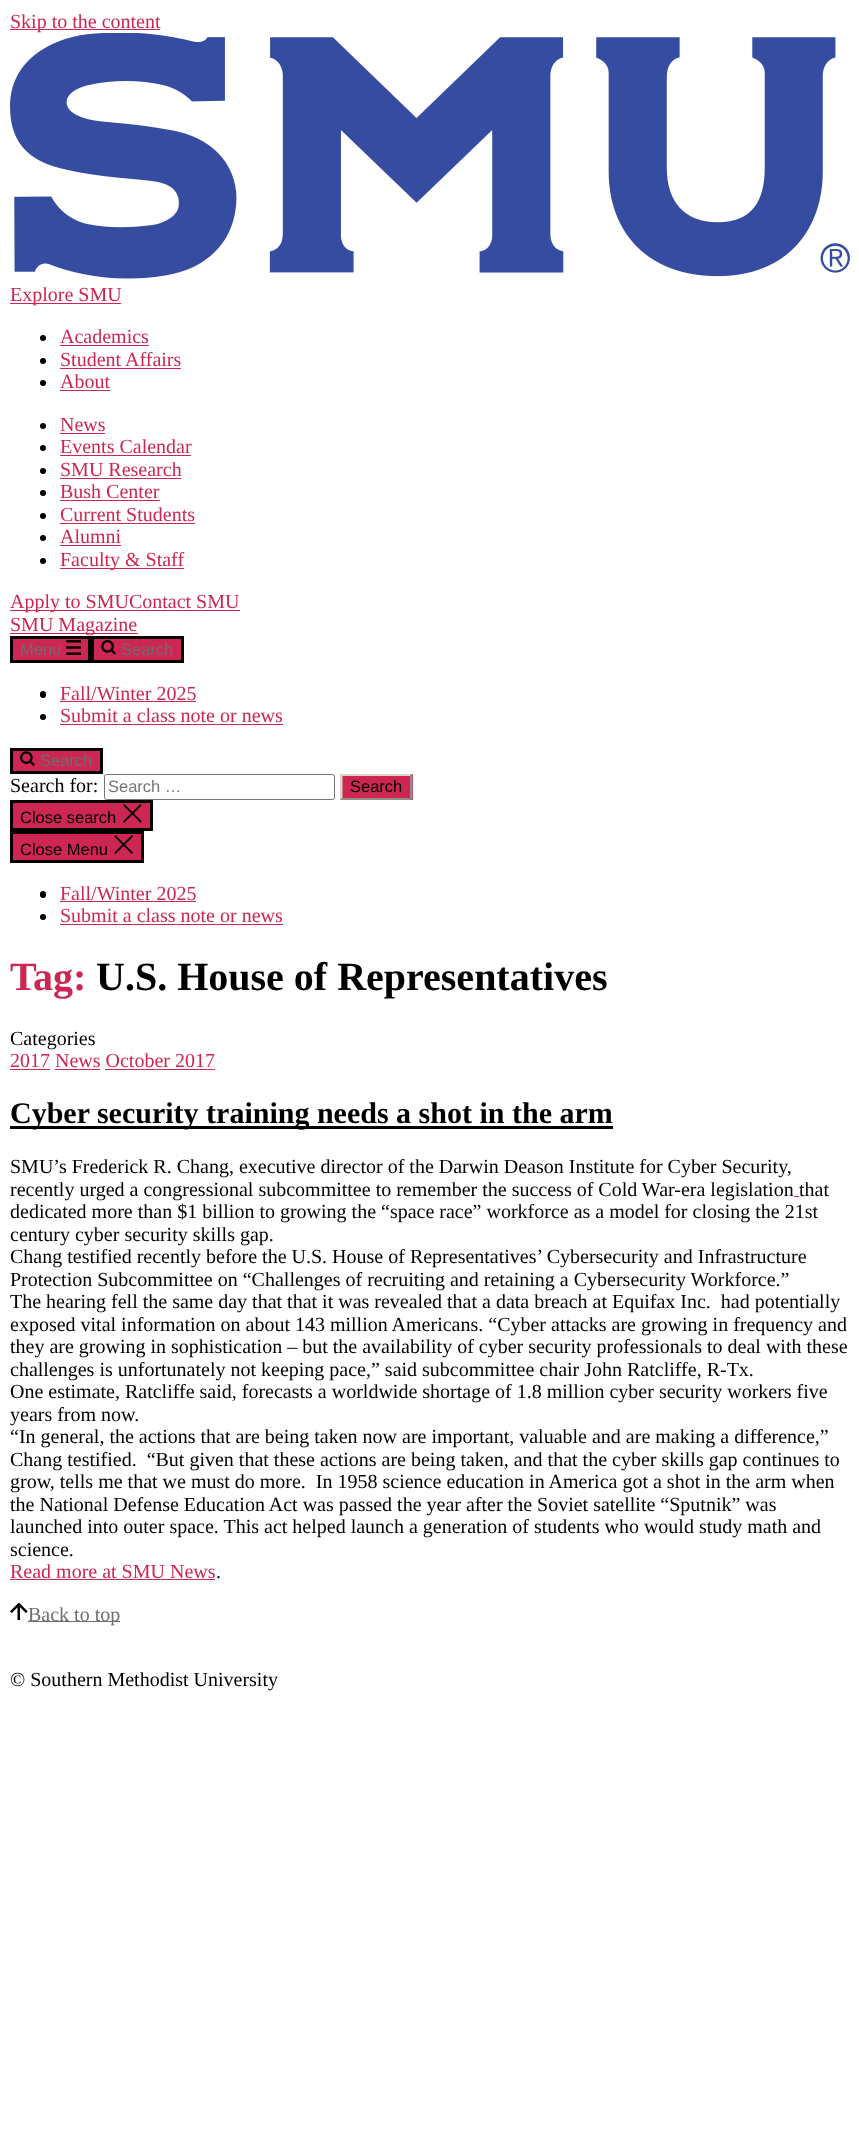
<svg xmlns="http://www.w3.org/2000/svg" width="859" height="2149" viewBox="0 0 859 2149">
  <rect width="100%" height="100%" fill="#ffffff"/>
  <rect x="10" y="29" width="150" height="1" fill="#cd2653"/>
  <text x="10" y="28" font-family="Liberation Serif" font-size="20" fill="#cd2653">Skip to the content</text>
  <image x="10" y="33" width="840" height="246" href="img1.png"/>
  <rect x="10" y="303" width="111" height="1" fill="#cd2653"/>
  <text x="10" y="301" font-family="Liberation Serif" font-size="20" fill="#cd2653">Explore SMU</text>
  <circle cx="43" cy="338" r="3" fill="#000000"/>
  <text x="60" y="343" font-family="Liberation Serif" font-size="20" fill="#cd2653">Academics</text>
  <rect x="60" y="345" width="89" height="1" fill="#cd2653"/>
  <circle cx="43" cy="361" r="3" fill="#000000"/>
  <text x="60" y="366" font-family="Liberation Serif" font-size="20" fill="#cd2653">Student Affairs</text>
  <rect x="60" y="368" width="121" height="1" fill="#cd2653"/>
  <circle cx="43" cy="383" r="3" fill="#000000"/>
  <text x="60" y="388" font-family="Liberation Serif" font-size="20" fill="#cd2653">About</text>
  <rect x="60" y="390" width="50" height="1" fill="#cd2653"/>
  <circle cx="43" cy="426" r="3" fill="#000000"/>
  <text x="60" y="431" font-family="Liberation Serif" font-size="20" fill="#cd2653">News</text>
  <rect x="60" y="433" width="45" height="1" fill="#cd2653"/>
  <circle cx="43" cy="448" r="3" fill="#000000"/>
  <text x="60" y="453" font-family="Liberation Serif" font-size="20" fill="#cd2653">Events Calendar</text>
  <rect x="60" y="455" width="131" height="1" fill="#cd2653"/>
  <circle cx="43" cy="471" r="3" fill="#000000"/>
  <text x="60" y="476" font-family="Liberation Serif" font-size="20" fill="#cd2653">SMU Research</text>
  <rect x="60" y="478" width="121" height="1" fill="#cd2653"/>
  <circle cx="43" cy="493" r="3" fill="#000000"/>
  <text x="60" y="498" font-family="Liberation Serif" font-size="20" fill="#cd2653">Bush Center</text>
  <rect x="60" y="500" width="100" height="1" fill="#cd2653"/>
  <circle cx="43" cy="516" r="3" fill="#000000"/>
  <text x="60" y="521" font-family="Liberation Serif" font-size="20" fill="#cd2653">Current Students</text>
  <rect x="60" y="523" width="135" height="1" fill="#cd2653"/>
  <circle cx="43" cy="538" r="3" fill="#000000"/>
  <text x="60" y="543" font-family="Liberation Serif" font-size="20" fill="#cd2653">Alumni</text>
  <rect x="60" y="545" width="61" height="1" fill="#cd2653"/>
  <circle cx="43" cy="561" r="3" fill="#000000"/>
  <rect x="60" y="568" width="124" height="1" fill="#cd2653"/>
  <text x="60" y="566" font-family="Liberation Serif" font-size="20" fill="#cd2653">Faculty &amp; Staff</text>
  <rect x="10" y="610" width="230" height="1" fill="#cd2653"/>
  <text x="10" y="608" font-family="Liberation Serif" font-size="20" fill="#cd2653">Apply to SMUContact SMU</text>
  <rect x="10" y="633" width="128" height="1" fill="#cd2653"/>
  <text x="10" y="631" font-family="Liberation Serif" font-size="20" fill="#cd2653">SMU Magazine</text>
  <rect x="11.5" y="637.5" width="78" height="24" fill="#cd2653" stroke="#000000" stroke-width="3"/>
  <text x="20" y="655" font-family="Liberation Sans" font-size="16.5" fill="#6d6d6d">Menu</text>
  <image x="66" y="640" width="15" height="15" href="img2.png"/>
  <rect x="92.5" y="637.5" width="90" height="24" fill="#cd2653" stroke="#000000" stroke-width="3"/>
  <image x="101" y="640" width="15" height="15" href="img3.png"/>
  <text x="121" y="655" font-family="Liberation Sans" font-size="16.5" fill="#6d6d6d">Search</text>
  <rect x="40" y="691" width="6" height="7" rx="3" fill="#000000"/>
  <text x="60" y="700" font-family="Liberation Serif" font-size="20" fill="#cd2653">Fall/Winter 2025</text>
  <rect x="60" y="701" width="136" height="1" fill="#cd2653"/>
  <circle cx="43" cy="717" r="3" fill="#000000"/>
  <text x="60" y="722" font-family="Liberation Serif" font-size="20" fill="#cd2653">Submit a class note or news</text>
  <rect x="60" y="724" width="223" height="1" fill="#cd2653"/>
  <rect x="11.5" y="749.5" width="90" height="23" fill="#cd2653" stroke="#000000" stroke-width="3"/>
  <image x="20" y="751" width="15" height="15" href="img4.png"/>
  <text x="40" y="766" font-family="Liberation Sans" font-size="16.5" fill="#6d6d6d">Search</text>
  <text x="10" y="792" font-family="Liberation Serif" font-size="20" fill="#000000">Search for:</text>
  <rect x="104.5" y="774.5" width="230" height="25" rx="2" fill="none" stroke="#767676"/>
  <text x="108" y="792" font-family="Liberation Sans" font-size="16.5" fill="#757575">Search …</text>
  <rect x="340" y="774" width="73" height="26" fill="#cd2653"/>
  <path d="M340 774H412L410 776H342Z" fill="#dcd7ca"/>
  <path d="M412.5 774V800L410 797.5V776Z" fill="#938f87"/>
  <path d="M412 800H340L342 798H410Z" fill="#938f87"/>
  <path d="M340 800V774L342.5 776V797.5Z" fill="#dcd7ca"/>
  <text x="350" y="792" font-family="Liberation Sans" font-size="16.5" fill="#000000">Search</text>
  <rect x="11.5" y="801.5" width="140" height="28" fill="#cd2653" stroke="#000000" stroke-width="3"/>
  <text x="20" y="823" font-family="Liberation Sans" font-size="16.5" fill="#000000">Close search</text>
  <image x="123" y="804" width="19" height="19" href="img5.png"/>
  <rect x="11.5" y="832.5" width="131" height="29" fill="#cd2653" stroke="#000000" stroke-width="3"/>
  <text x="20" y="855" font-family="Liberation Sans" font-size="16.5" fill="#000000">Close Menu</text>
  <image x="114" y="835" width="19" height="19" href="img6.png"/>
  <rect x="40" y="891" width="6" height="7" rx="3" fill="#000000"/>
  <text x="60" y="900" font-family="Liberation Serif" font-size="20" fill="#cd2653">Fall/Winter 2025</text>
  <rect x="60" y="901" width="136" height="1" fill="#cd2653"/>
  <circle cx="43" cy="917" r="3" fill="#000000"/>
  <text x="60" y="922" font-family="Liberation Serif" font-size="20" fill="#cd2653">Submit a class note or news</text>
  <rect x="60" y="924" width="223" height="1" fill="#cd2653"/>
  <text x="10" y="990" font-family="Liberation Serif" font-size="40" font-weight="bold" fill="#cd2653">Tag:</text>
  <text x="96" y="990" font-family="Liberation Serif" font-size="40" font-weight="bold" fill="#000000">U.S. House of Representatives</text>
  <text x="10" y="1045" font-family="Liberation Serif" font-size="20" fill="#000000">Categories</text>
  <text x="10" y="1067" font-family="Liberation Serif" font-size="20" fill="#cd2653">2017 News October 2017</text>
  <rect x="10" y="1069" width="40" height="1" fill="#cd2653"/>
  <rect x="55" y="1069" width="45" height="1" fill="#cd2653"/>
  <rect x="105" y="1069" width="110" height="1" fill="#cd2653"/>
  <rect x="10" y="1126" width="603" height="3" fill="#000000"/>
  <text x="10" y="1123" font-family="Liberation Serif" font-size="30" font-weight="bold" fill="#000000">Cyber security training needs a shot in the arm</text>
  <text x="10" y="1173" font-family="Liberation Serif" font-size="20" fill="#000000">SMU’s Frederick R. Chang, executive director of the Darwin Deason Institute for Cyber Security,</text>
  <text x="10" y="1196" font-family="Liberation Serif" font-size="20" fill="#000000">recently urged a congressional subcommittee to remember the success of Cold War-era legislation</text>
  <rect x="794" y="1196" width="5" height="1" fill="#cd2653"/>
  <text x="799" y="1196" font-family="Liberation Serif" font-size="20" fill="#000000">that</text>
  <text x="10" y="1218" font-family="Liberation Serif" font-size="20" fill="#000000">dedicated more than $1 billion to growing the “space race” workforce as a model for closing the 21st</text>
  <text x="10" y="1241" font-family="Liberation Serif" font-size="20" fill="#000000">century cyber security skills gap.</text>
  <text x="10" y="1263" font-family="Liberation Serif" font-size="20" fill="#000000">Chang testified recently before the U.S. House of Representatives’ Cybersecurity and Infrastructure</text>
  <text x="10" y="1286" font-family="Liberation Serif" font-size="20" fill="#000000">Protection Subcommittee on “Challenges of recruiting and retaining a Cybersecurity Workforce.”</text>
  <text x="10" y="1308" font-family="Liberation Serif" font-size="20" fill="#000000" xml:space="preserve">The hearing fell the same day that that it was revealed that a data breach at Equifax Inc.  had potentially</text>
  <text x="10" y="1331" font-family="Liberation Serif" font-size="20" fill="#000000">exposed vital information on about 143 million Americans. “Cyber attacks are growing in frequency and</text>
  <text x="10" y="1353" font-family="Liberation Serif" font-size="20" fill="#000000">they are growing in sophistication – but the availability of cyber security professionals to deal with these</text>
  <text x="10" y="1376" font-family="Liberation Serif" font-size="20" fill="#000000">challenges is unfortunately not keeping pace,” said subcommittee chair John Ratcliffe, R-Tx.</text>
  <text x="10" y="1398" font-family="Liberation Serif" font-size="20" fill="#000000">One estimate, Ratcliffe said, forecasts a worldwide shortage of 1.8 million cyber security workers five</text>
  <text x="10" y="1421" font-family="Liberation Serif" font-size="20" fill="#000000">years from now.</text>
  <text x="10" y="1443" font-family="Liberation Serif" font-size="20" fill="#000000">“In general, the actions that are being taken now are important, valuable and are making a difference,”</text>
  <text x="10" y="1466" font-family="Liberation Serif" font-size="20" fill="#000000" xml:space="preserve">Chang testified.  “But given that these actions are being taken, and that the cyber skills gap continues to</text>
  <text x="10" y="1488" font-family="Liberation Serif" font-size="20" fill="#000000" xml:space="preserve">grow, tells me that we must do more.  In 1958 science education in America got a shot in the arm when</text>
  <text x="10" y="1511" font-family="Liberation Serif" font-size="20" fill="#000000">the National Defense Education Act was passed the year after the Soviet satellite “Sputnik” was</text>
  <text x="10" y="1533" font-family="Liberation Serif" font-size="20" fill="#000000">launched into outer space. This act helped launch a generation of students who would study math and</text>
  <text x="10" y="1556" font-family="Liberation Serif" font-size="20" fill="#000000">science.</text>
  <text x="10" y="1578" font-family="Liberation Serif" font-size="20" fill="#cd2653">Read more at SMU News</text>
  <rect x="10" y="1579" width="205" height="1" fill="#cd2653"/>
  <text x="216" y="1578" font-family="Liberation Serif" font-size="20" fill="#000000">.</text>
  <image x="10" y="1603" width="18" height="17" href="img7.png"/>
  <rect x="28" y="1621" width="92" height="1" fill="#6d6d6d"/>
  <text x="28" y="1621" font-family="Liberation Serif" font-size="20" fill="#6d6d6d">Back to top</text>
  <text x="10" y="1686" font-family="Liberation Serif" font-size="20" fill="#000000">© Southern Methodist University</text>
</svg>
